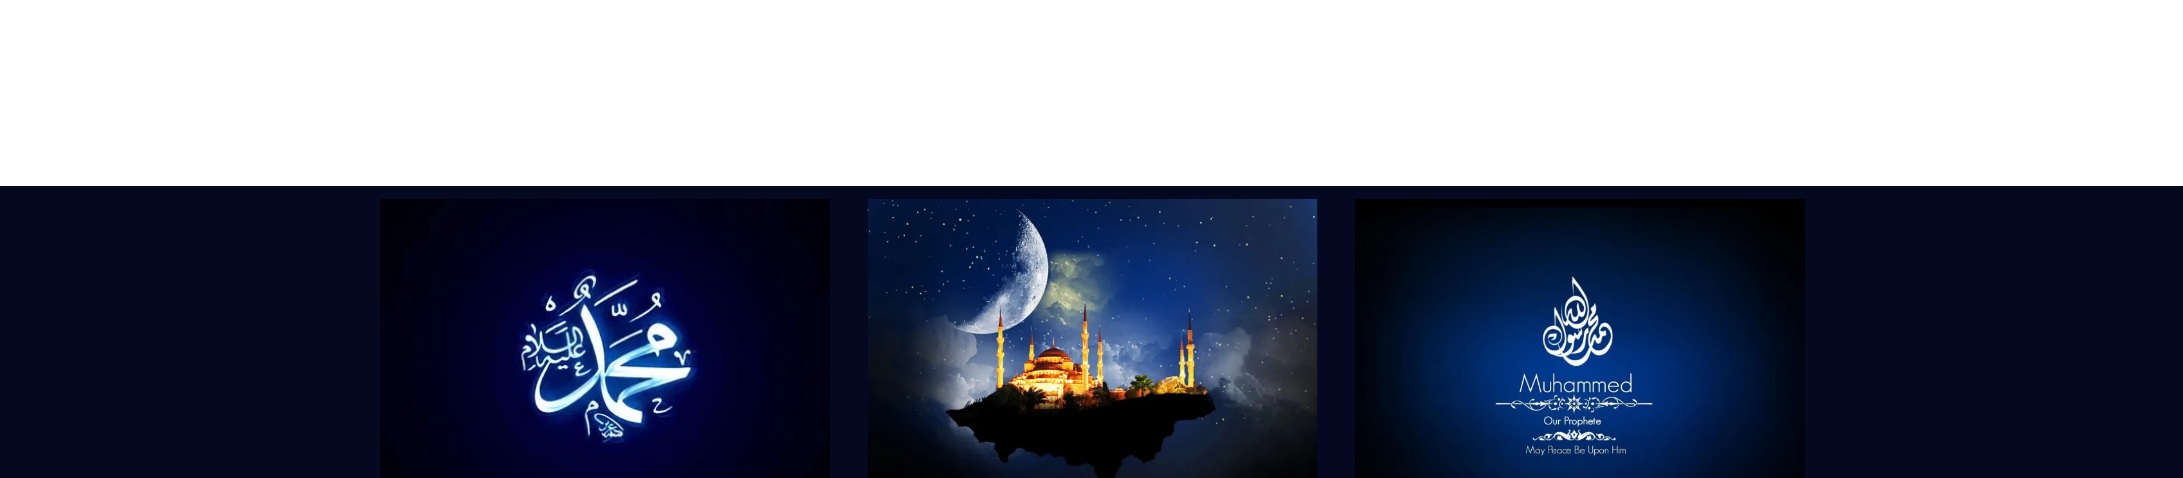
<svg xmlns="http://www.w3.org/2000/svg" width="2183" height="478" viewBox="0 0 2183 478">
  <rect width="100%" height="100%" fill="#ffffff"/>
  <rect x="0" y="186" width="2183" height="292" fill="#040820"/>
  <image x="380" y="199" width="450" height="279" href="img1.png"/>
  <image x="867" y="198" width="451" height="280" href="img2.png"/>
  <image x="1355" y="199" width="450" height="279" href="img3.png"/>
</svg>
